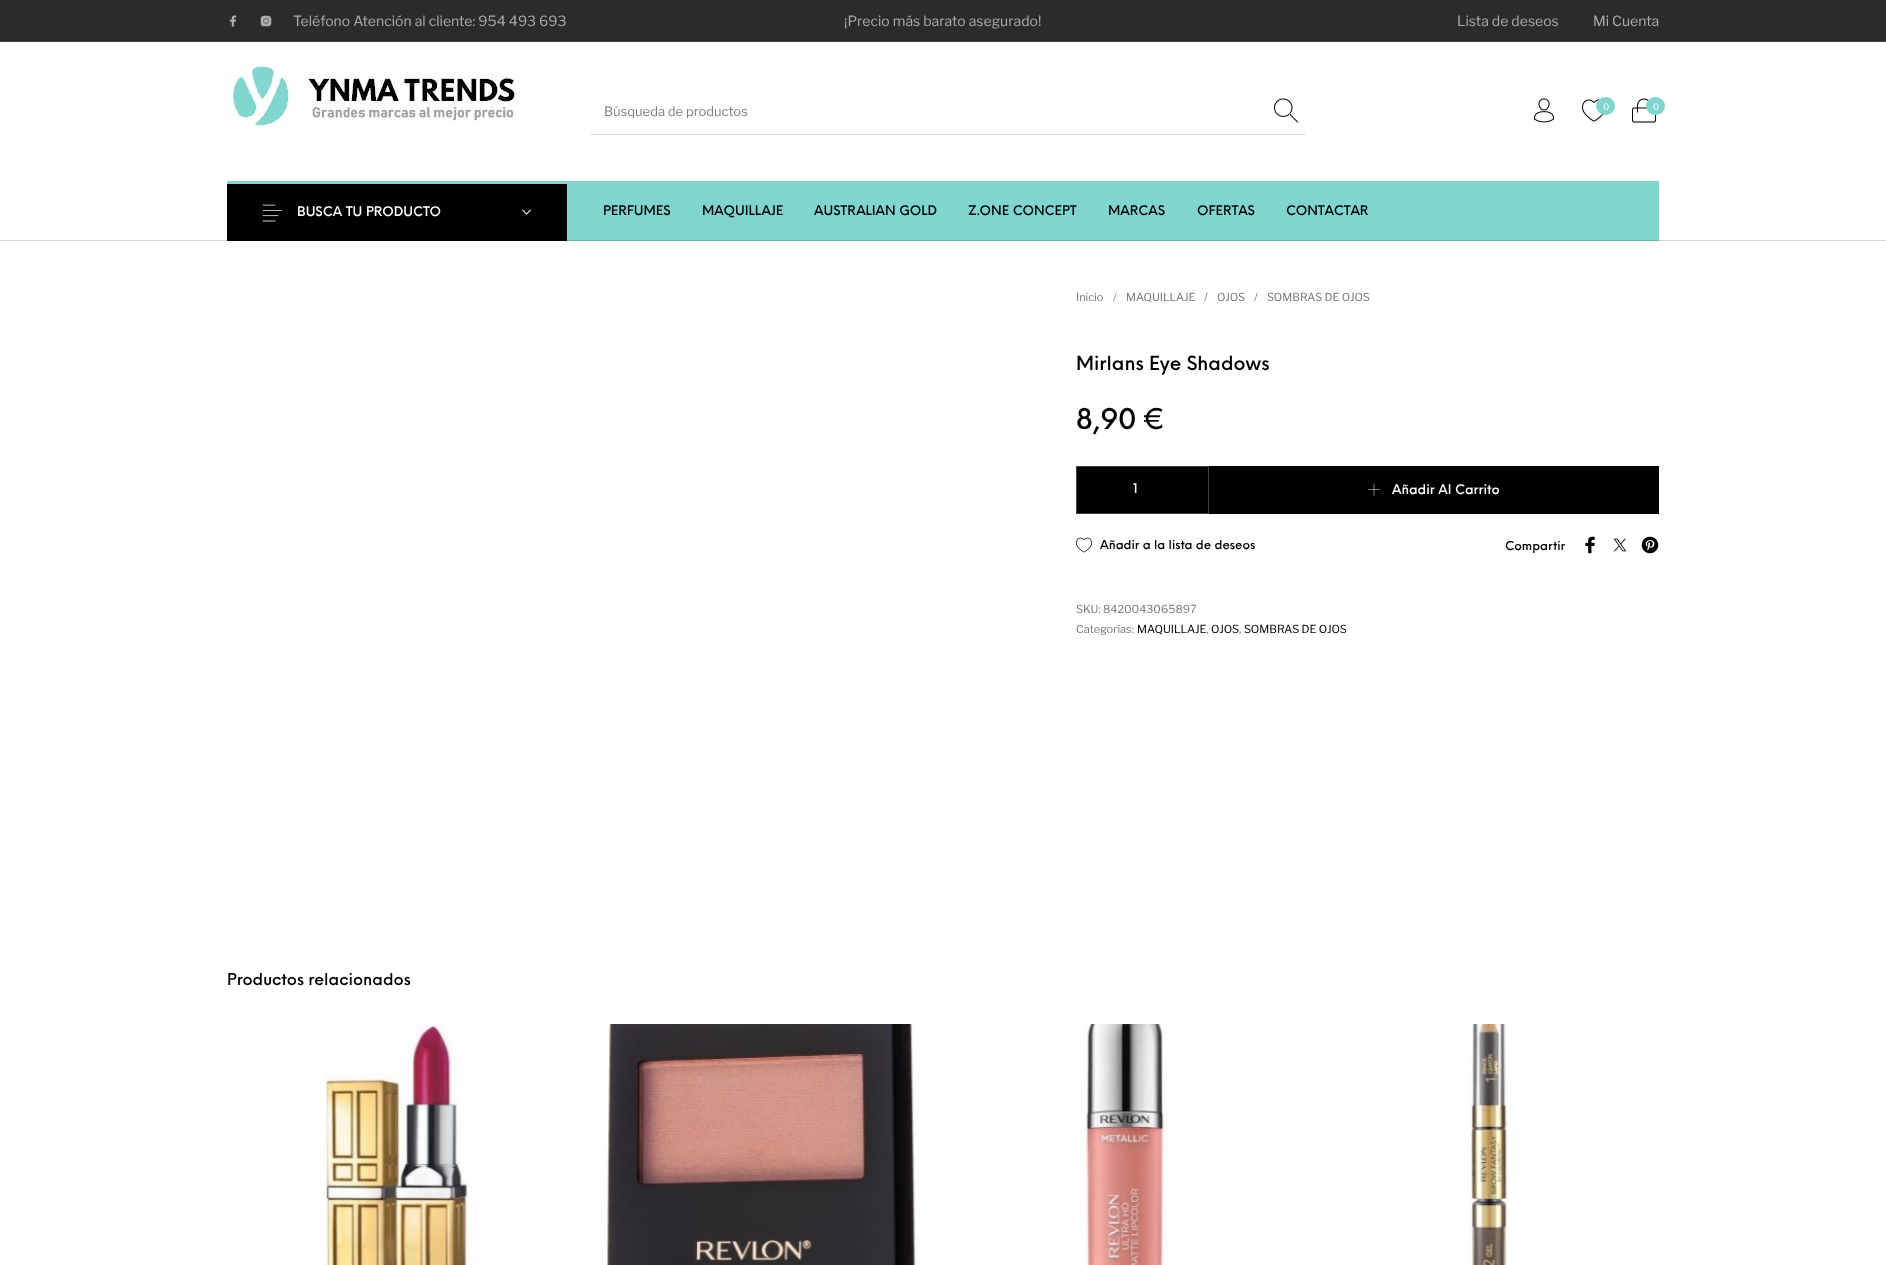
<svg xmlns="http://www.w3.org/2000/svg" width="1886" height="1265" viewBox="0 0 1886 1265">
  <rect width="100%" height="100%" fill="#292b2c"/>
  <image x="229" y="15" width="8" height="12" href="img1.png"/>
  <image x="260" y="15" width="12" height="12" href="img2.png"/>
  <text x="293" y="26" font-family="Libre Franklin" font-size="14" fill="#adadad">Teléfono Atención al cliente: 954 493 693</text>
  <text x="844" y="26" font-family="Libre Franklin" font-size="14" fill="#adadad">¡Precio más barato asegurado!</text>
  <text x="1457" y="26" font-family="Libre Franklin" font-size="14" fill="#adadad">Lista de deseos</text>
  <text x="1593" y="26" font-family="Libre Franklin" font-size="14" fill="#adadad">Mi Cuenta</text>
  <rect x="0" y="41" width="1886" height="1" fill="#3d3f3f"/>
  <rect x="0" y="42" width="1886" height="198" fill="#ffffff"/>
  <rect x="0" y="240" width="1886" height="1" fill="#d9d9d9"/>
  <image x="229" y="58" width="286" height="72" href="img3.png"/>
  <rect x="591" y="134" width="714" height="1" fill="#d9d9d9"/>
  <text x="604" y="116" font-family="Libre Franklin" font-size="13" fill="#808080">Búsqueda de productos</text>
  <image x="1274" y="98" width="24" height="25" href="img4.png"/>
  <image x="1534" y="98" width="21" height="25" href="img5.png"/>
  <image x="1582" y="99" width="22" height="23" href="img6.png"/>
  <rect x="1596" y="97" width="19" height="18" rx="9" fill="#80d6cf"/>
  <text x="1603" y="110" font-family="Libre Franklin" font-size="9" fill="#ffffff">0</text>
  <image x="1632" y="98" width="25" height="25" href="img7.png"/>
  <rect x="1646" y="97" width="19" height="18" rx="9" fill="#80d6cf"/>
  <text x="1653" y="110" font-family="Libre Franklin" font-size="9" fill="#ffffff">0</text>
  <rect x="227" y="181" width="1432" height="59" fill="#80d6cf"/>
  <rect x="227" y="184" width="340" height="57" fill="#000000"/>
  <image x="262" y="204" width="20" height="18" href="img8.png"/>
  <text x="297" y="216" font-family="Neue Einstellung" font-size="13" font-weight="500" fill="#ffffff">BUSCA TU PRODUCTO</text>
  <image x="522" y="209" width="9" height="6" href="img9.png"/>
  <rect x="567" y="240" width="1092" height="1" fill="#6db6b0"/>
  <text x="603" y="215" font-family="Neue Einstellung" font-size="13" font-weight="500" fill="#000000">PERFUMES</text>
  <text x="702" y="215" font-family="Neue Einstellung" font-size="13" font-weight="500" fill="#000000">MAQUILLAJE</text>
  <text x="814" y="215" font-family="Neue Einstellung" font-size="13" font-weight="500" fill="#000000">AUSTRALIAN GOLD</text>
  <text x="968" y="215" font-family="Neue Einstellung" font-size="13" font-weight="500" fill="#000000">Z.ONE CONCEPT</text>
  <text x="1108" y="215" font-family="Neue Einstellung" font-size="13" font-weight="500" fill="#000000">MARCAS</text>
  <text x="1197" y="215" font-family="Neue Einstellung" font-size="13" font-weight="500" fill="#000000">OFERTAS</text>
  <text x="1286" y="215" font-family="Neue Einstellung" font-size="13" font-weight="500" fill="#000000">CONTACTAR</text>
  <rect x="0" y="241" width="1886" height="1024" fill="#ffffff"/>
  <text x="1076" y="301" font-family="Libre Franklin" font-size="11" fill="#777777">Inicio</text>
  <text x="1113" y="301" font-family="Libre Franklin" font-size="11" fill="#777777">/</text>
  <text x="1126" y="301" font-family="Libre Franklin" font-size="11" fill="#777777">MAQUILLAJE</text>
  <text x="1204" y="301" font-family="Libre Franklin" font-size="11" fill="#777777">/</text>
  <text x="1217" y="301" font-family="Libre Franklin" font-size="11" fill="#777777">OJOS</text>
  <text x="1254" y="301" font-family="Libre Franklin" font-size="11" fill="#777777">/</text>
  <text x="1267" y="301" font-family="Libre Franklin" font-size="11" fill="#777777">SOMBRAS DE OJOS</text>
  <text x="1076" y="370" font-family="Neue Einstellung" font-size="19" font-weight="500" fill="#000000">Mirlans Eye Shadows</text>
  <text x="1076" y="429" font-family="Neue Einstellung" font-size="28" font-weight="500" fill="#000000">8,90 €</text>
  <rect x="1076.5" y="466.5" width="132" height="47" fill="#000000" stroke="#404040"/>
  <text x="1133" y="493" font-family="Neue Einstellung" font-size="13" font-weight="500" fill="#ffffff">1</text>
  <rect x="1209" y="466" width="450" height="48" fill="#000000"/>
  <image x="1368" y="483" width="12" height="13" href="img10.png"/>
  <text x="1392" y="494" font-family="Neue Einstellung" font-size="13" font-weight="500" fill="#ffffff">Añadir Al Carrito</text>
  <image x="1076" y="537" width="16" height="16" href="img11.png"/>
  <text x="1100" y="549" font-family="Neue Einstellung" font-size="12" font-weight="500" fill="#000000">Añadir a la lista de deseos</text>
  <text x="1505" y="550" font-family="Neue Einstellung" font-size="12" font-weight="500" fill="#000000">Compartir</text>
  <image x="1585" y="536" width="10" height="18" href="img12.png"/>
  <image x="1613" y="538" width="14" height="14" href="img13.png"/>
  <image x="1641" y="536" width="18" height="18" href="img14.png"/>
  <text x="1076" y="613" font-family="Libre Franklin" font-size="11" fill="#777777">SKU: 8420043065897</text>
  <text x="1076" y="633" font-family="Libre Franklin" font-size="11" fill="#777777">Categorías:</text>
  <text x="1137" y="633" font-family="Libre Franklin" font-size="11" fill="#000000">MAQUILLAJE</text>
  <text x="1206" y="633" font-family="Libre Franklin" font-size="11" fill="#777777">,</text>
  <text x="1211" y="633" font-family="Libre Franklin" font-size="11" fill="#000000">OJOS</text>
  <text x="1239" y="633" font-family="Libre Franklin" font-size="11" fill="#777777">,</text>
  <text x="1244" y="633" font-family="Libre Franklin" font-size="11" fill="#000000">SOMBRAS DE OJOS</text>
  <text x="227" y="985" font-family="Neue Einstellung" font-size="16" font-weight="500" fill="#000000">Productos relacionados</text>
  <image x="323" y="1024" width="151" height="241" href="img15.png"/>
  <image x="606" y="1024" width="314" height="241" href="img16.png"/>
  <image x="1085" y="1024" width="84" height="241" href="img17.png"/>
  <image x="1467" y="1024" width="50" height="241" href="img18.png"/>
</svg>
